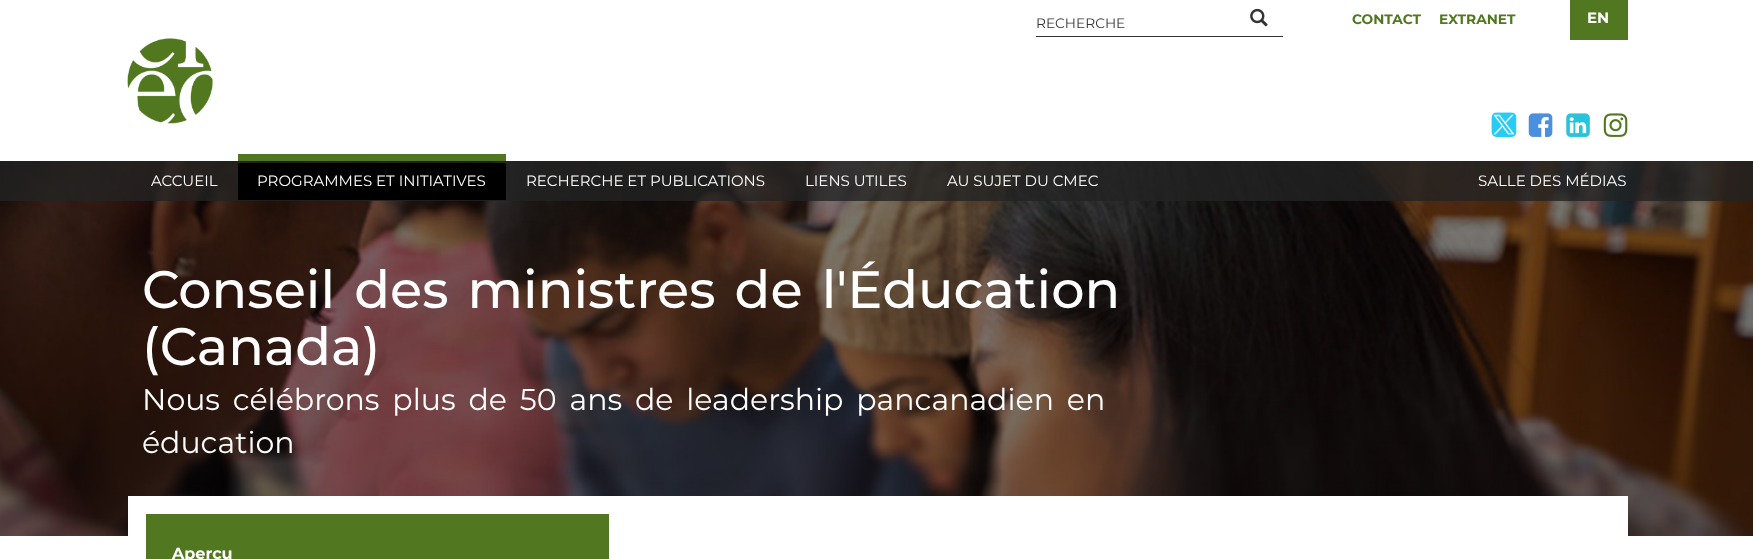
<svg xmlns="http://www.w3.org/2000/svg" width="1753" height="559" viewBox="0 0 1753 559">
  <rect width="100%" height="100%" fill="#ffffff"/>
  <image x="0" y="161" width="1753" height="375" href="img7.png"/>
  <rect x="0" y="161" width="1753" height="40" fill="#232323" fill-opacity="0.8"/>
  <rect x="1036" y="36" width="247" height="1" fill="#333333"/>
  <text x="1036" y="28" font-family="Montserrat" font-size="13.75" fill="#333333">RECHERCHE</text>
  <image x="1250" y="8" width="18" height="19" href="img1.png"/>
  <text x="1352" y="24" font-family="Montserrat" font-size="13.75" font-weight="bold" fill="#517820">CONTACT</text>
  <text x="1439" y="24" font-family="Montserrat" font-size="13.75" font-weight="bold" fill="#517820">EXTRANET</text>
  <rect x="1570" y="0" width="58" height="40" fill="#517820"/>
  <text x="1587" y="23" font-family="Montserrat" font-size="15" font-weight="bold" fill="#ffffff">EN</text>
  <image x="1491" y="112" width="26" height="25" href="img2.png"/>
  <image x="1528" y="113" width="25" height="24" href="img3.png"/>
  <image x="1566" y="113" width="24" height="24" href="img4.png"/>
  <image x="1603" y="113" width="25" height="24" href="img5.png"/>
  <text x="151" y="186" font-family="Montserrat" font-size="15" fill="#ffffff">ACCUEIL</text>
  <rect x="238" y="163" width="268" height="37" fill="#000000"/>
  <rect x="238" y="154" width="268" height="7" fill="#517820"/>
  <text x="257" y="186" font-family="Montserrat" font-size="15" fill="#ffffff">PROGRAMMES ET INITIATIVES</text>
  <text x="526" y="186" font-family="Montserrat" font-size="15" fill="#ffffff">RECHERCHE ET PUBLICATIONS</text>
  <text x="805" y="186" font-family="Montserrat" font-size="15" fill="#ffffff">LIENS UTILES</text>
  <text x="947" y="186" font-family="Montserrat" font-size="15" fill="#ffffff">AU SUJET DU CMEC</text>
  <text x="1478" y="186" font-family="Montserrat" font-size="15" fill="#ffffff">SALLE DES MÉDIAS</text>
  <image x="127" y="38" width="86" height="86" href="img6.png"/>
  <text x="142" y="308" word-spacing="5" font-family="Montserrat" font-size="52.5" font-weight="500" fill="#ffffff">Conseil des ministres de l'Éducation</text>
  <text x="142" y="365" font-family="Montserrat" font-size="52.5" font-weight="500" fill="#ffffff">(Canada)</text>
  <text x="142" y="410" word-spacing="5" font-family="Montserrat" font-size="30" fill="#ffffff">Nous célébrons plus de 50 ans de leadership pancanadien en</text>
  <text x="142" y="453" font-family="Montserrat" font-size="30" fill="#ffffff">éducation</text>
  <rect x="128" y="496" width="1500" height="40" fill="#ffffff"/>
  <rect x="146" y="514" width="463" height="45" fill="#517820"/>
  <text x="172" y="559" font-family="Montserrat" font-size="16" font-weight="bold" fill="#ffffff">Aperçu</text>
</svg>
